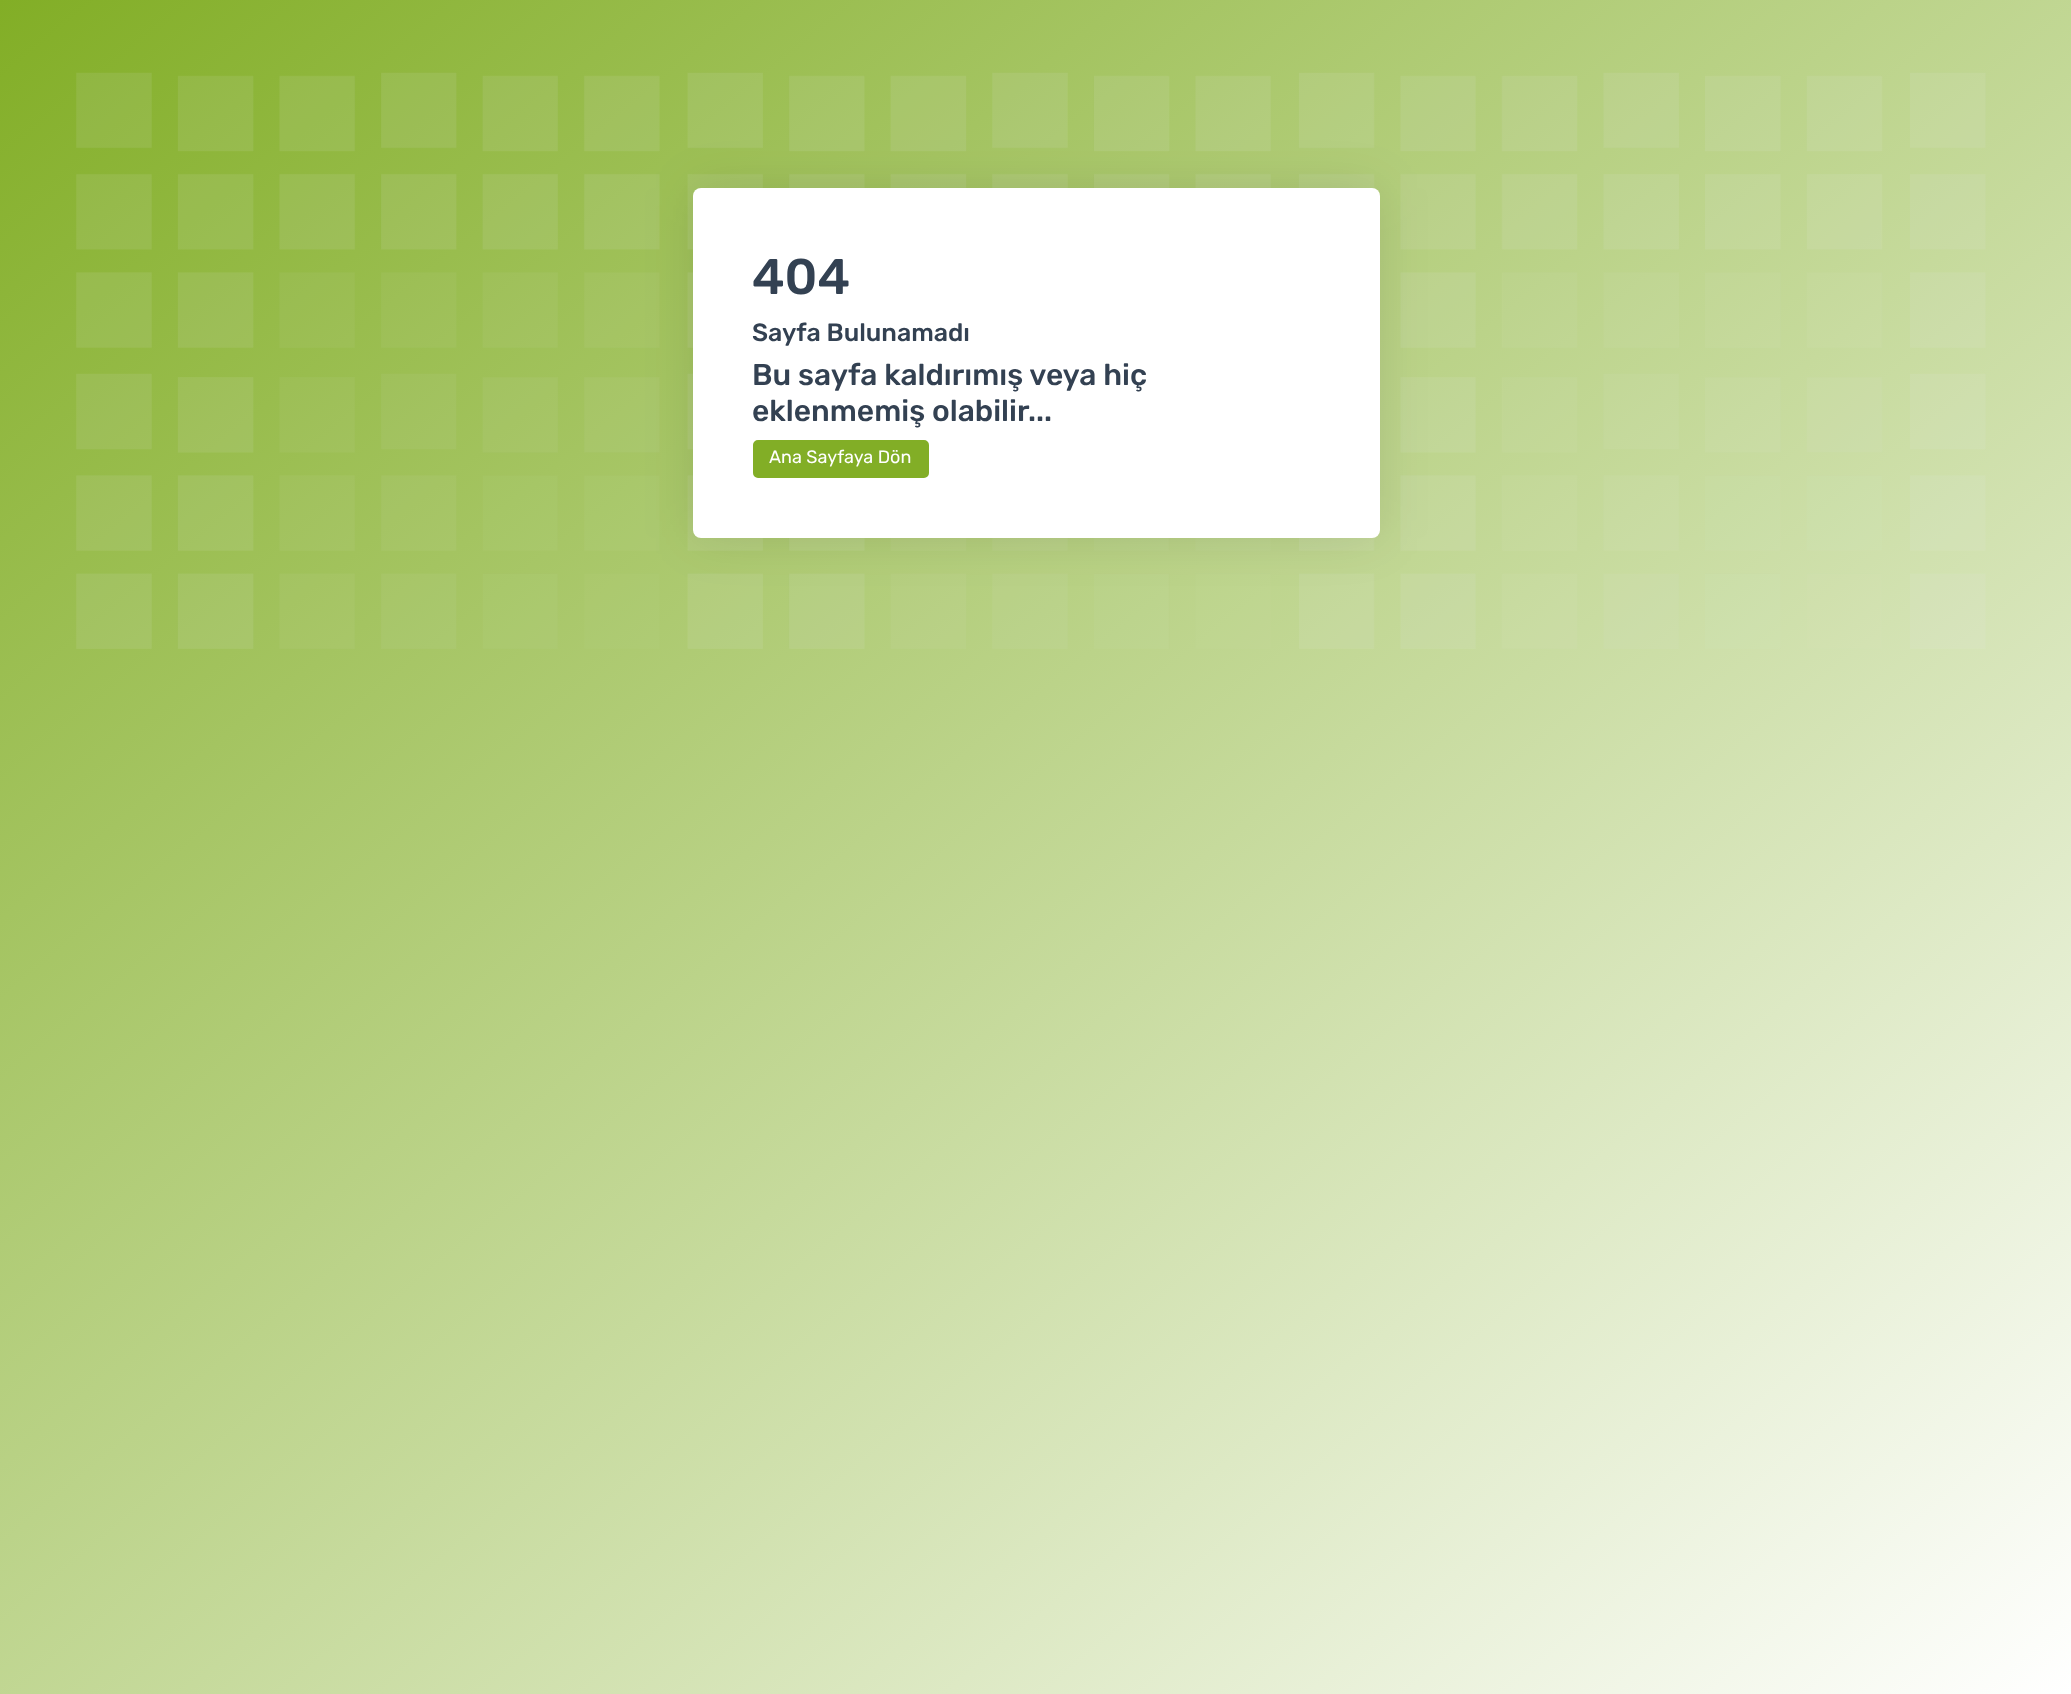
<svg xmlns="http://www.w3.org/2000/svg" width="2071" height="1694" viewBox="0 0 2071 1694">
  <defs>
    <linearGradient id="g1" gradientUnits="userSpaceOnUse" x1="205" y1="-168" x2="1866" y2="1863"><stop offset="0" stop-color="#82ae26"/><stop offset="1" stop-color="#ffffff"/></linearGradient>
    <filter id="blur1" x="-50%" y="-200%" width="200%" height="500%"><feGaussianBlur stdDeviation="25"/></filter>
  </defs>
  <rect width="100%" height="100%" fill="#ffffff"/>
  <rect x="0" y="0" width="2071" height="1694" fill="url(#g1)"/>
  <image x="76" y="72" width="1910" height="577" href="img1.png"/>
  <rect x="693" y="188" width="687" height="350" rx="8" fill="#000000" fill-opacity="0.1" filter="url(#blur1)"/>
  <rect x="693" y="188" width="687" height="350" rx="8" fill="#ffffff"/>
  <text x="752" y="294" font-family="Rubik" font-size="50" font-weight="500" fill="#334152">404</text>
  <text x="752" y="341" font-family="Rubik" font-size="25" font-weight="500" fill="#334152">Sayfa Bulunamadı</text>
  <text x="752" y="385" font-family="Rubik" font-size="30" font-weight="500" fill="#334152">Bu sayfa kaldırımış veya hiç</text>
  <text x="752" y="421" font-family="Rubik" font-size="30" font-weight="500" fill="#334152">eklenmemiş olabilir...</text>
  <rect x="754.5" y="441.5" width="173" height="35" rx="3.5" fill="#82ae26" stroke="#82ae26" stroke-width="3"/>
  <text x="769" y="463" font-family="Rubik" font-size="18" fill="#ffffff">Ana Sayfaya Dön</text>
</svg>
